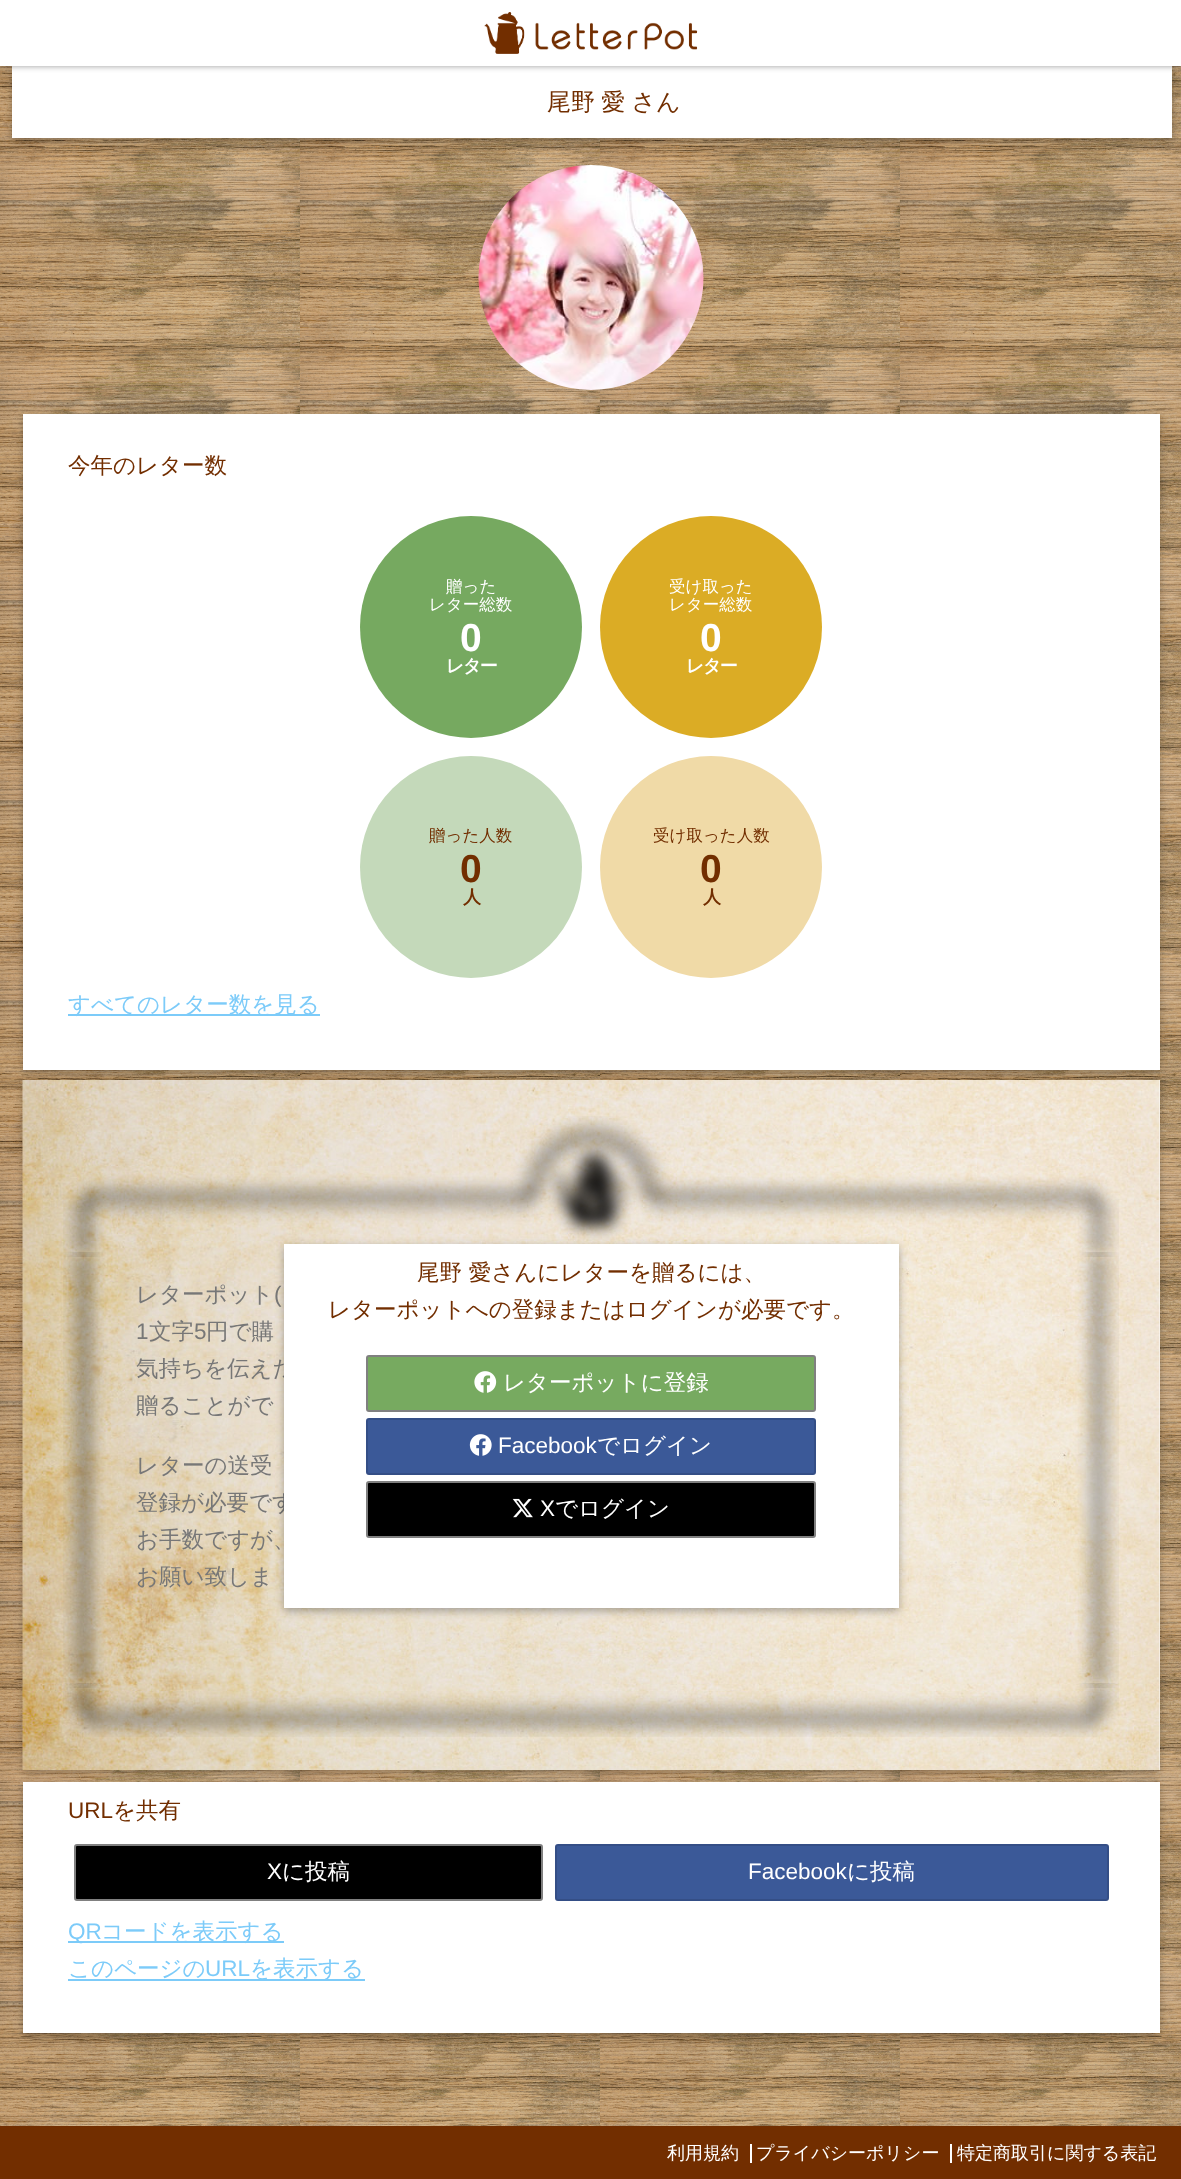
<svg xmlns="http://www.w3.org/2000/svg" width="1181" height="2179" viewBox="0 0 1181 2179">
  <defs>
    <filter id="blur1" x="-50%" y="-200%" width="200%" height="500%"><feGaussianBlur stdDeviation="4.5"/></filter>
    <filter id="blur2" x="-50%" y="-200%" width="200%" height="500%"><feGaussianBlur stdDeviation="3"/></filter>
  </defs>
  <rect width="100%" height="100%" fill="#ffffff"/>
  <image x="0" y="66" width="1181" height="2060" href="img1.png"/>
  <rect x="12" y="69" width="1160" height="72" fill="#000000" fill-opacity="0.3" filter="url(#blur1)"/>
  <rect x="12" y="66" width="1160" height="72" fill="#ffffff"/>
  <rect x="0" y="0" width="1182" height="66" fill="#000000" fill-opacity="0.4" filter="url(#blur2)"/>
  <rect x="0" y="0" width="1181" height="66" fill="#ffffff"/>
  <image x="484" y="12" width="214" height="42" href="img2.png"/>
  <text x="547" y="110" word-spacing="-1" font-family="WenQuanYi Zen Hei" font-size="24" font-weight="500" fill="#722e00">尾野 愛 さん</text>
  <image x="478" y="165" width="226" height="225" href="img3.png"/>
  <rect x="23" y="417" width="1137" height="656" fill="#000000" fill-opacity="0.3" filter="url(#blur1)"/>
  <rect x="23" y="414" width="1137" height="656" fill="#ffffff"/>
  <text x="68" y="473" font-family="WenQuanYi Zen Hei" font-size="22.5" font-weight="500" fill="#722e00">今年のレター数</text>
  <circle cx="471" cy="627" r="111" fill="#76a960"/>
  <text x="446" y="592" font-family="WenQuanYi Zen Hei" font-size="16.5" font-weight="500" fill="#ffffff">贈った</text>
  <text x="429" y="610" font-family="WenQuanYi Zen Hei" font-size="16.5" font-weight="500" fill="#ffffff">レター総数</text>
  <text x="460" y="651" font-family="Liberation Sans" font-size="39" font-weight="bold" fill="#ffffff">0</text>
  <text x="446" y="672" font-family="WenQuanYi Zen Hei" font-size="18" font-weight="bold" letter-spacing="-1.5" fill="#ffffff">レター</text>
  <circle cx="711" cy="627" r="111" fill="#dbac25"/>
  <text x="669" y="592" font-family="WenQuanYi Zen Hei" font-size="16.5" font-weight="500" fill="#ffffff">受け取った</text>
  <text x="669" y="610" font-family="WenQuanYi Zen Hei" font-size="16.5" font-weight="500" fill="#ffffff">レター総数</text>
  <text x="700" y="651" font-family="Liberation Sans" font-size="39" font-weight="bold" fill="#ffffff">0</text>
  <text x="686" y="672" font-family="WenQuanYi Zen Hei" font-size="18" font-weight="bold" letter-spacing="-1.5" fill="#ffffff">レター</text>
  <circle cx="471" cy="867" r="111" fill="#c4d9ba"/>
  <text x="429" y="841" font-family="WenQuanYi Zen Hei" font-size="16.5" font-weight="500" fill="#722e00">贈った人数</text>
  <text x="460" y="882" font-family="Liberation Sans" font-size="39" font-weight="bold" fill="#722e00">0</text>
  <text x="463" y="903" font-family="WenQuanYi Zen Hei" font-size="18" font-weight="bold" letter-spacing="-1.5" fill="#722e00">人</text>
  <circle cx="711" cy="867" r="111" fill="#f0daa7"/>
  <text x="653" y="841" font-family="WenQuanYi Zen Hei" font-size="16.5" font-weight="500" fill="#722e00">受け取った人数</text>
  <text x="700" y="882" font-family="Liberation Sans" font-size="39" font-weight="bold" fill="#722e00">0</text>
  <text x="703" y="903" font-family="WenQuanYi Zen Hei" font-size="18" font-weight="bold" letter-spacing="-1.5" fill="#722e00">人</text>
  <rect x="68" y="1014" width="252" height="2" fill="#7ccbf9"/>
  <text x="68" y="1012" font-family="WenQuanYi Zen Hei" font-size="22.5" font-weight="500" fill="#7ccbf9">すべてのレター数を見る</text>
  <rect x="23" y="1083" width="1137" height="690" fill="#000000" fill-opacity="0.3" filter="url(#blur1)"/>
  <rect x="1159" y="1080" width="1" height="690" fill="#ffffff"/>
  <image x="22" y="1080" width="1138" height="690" href="img4.png"/>
  <image x="63" y="1116" width="1056" height="141" href="img5.png"/>
  <image x="63" y="1683" width="1056" height="54" href="img7.png"/>
  <image x="63" y="1252" width="1056" height="436" href="img6.png"/>
  <text x="136" y="1302" font-family="WenQuanYi Zen Hei" font-size="22.5" font-weight="500" fill="#777777">レターポット</text>
  <text x="274" y="1302" font-family="Liberation Sans" font-size="22.5" fill="#777777">(</text>
  <text x="136" y="1339" font-family="Liberation Sans" font-size="22.5" fill="#777777">1</text>
  <text x="149" y="1339" font-family="WenQuanYi Zen Hei" font-size="22.5" font-weight="500" fill="#777777">文字</text>
  <text x="194" y="1339" font-family="Liberation Sans" font-size="22.5" fill="#777777">5</text>
  <text x="206" y="1339" font-family="WenQuanYi Zen Hei" font-size="22.5" font-weight="500" fill="#777777">円で購</text>
  <text x="136" y="1376" font-family="WenQuanYi Zen Hei" font-size="22.5" font-weight="500" fill="#777777">気持ちを伝えた</text>
  <text x="136" y="1413" font-family="WenQuanYi Zen Hei" font-size="22.5" font-weight="500" fill="#777777">贈ることがで</text>
  <text x="136" y="1473" font-family="WenQuanYi Zen Hei" font-size="22.5" font-weight="500" fill="#777777">レターの送受</text>
  <text x="136" y="1510" font-family="WenQuanYi Zen Hei" font-size="22.5" font-weight="500" fill="#777777">登録が必要です</text>
  <text x="136" y="1547" font-family="WenQuanYi Zen Hei" font-size="22.5" font-weight="500" fill="#777777">お手数ですが、</text>
  <text x="136" y="1584" font-family="WenQuanYi Zen Hei" font-size="22.5" font-weight="500" fill="#777777">お願い致しま</text>
  <rect x="284" y="1247" width="615" height="364" fill="#000000" fill-opacity="0.3" filter="url(#blur1)"/>
  <rect x="284" y="1244" width="615" height="364" fill="#ffffff"/>
  <text x="417" y="1280" font-family="WenQuanYi Zen Hei" font-size="22.5" font-weight="500" fill="#722e00">尾野 愛さんにレターを贈るには、</text>
  <text x="328" y="1317" font-family="WenQuanYi Zen Hei" font-size="22.5" font-weight="500" fill="#722e00">レターポットへの登録またはログインが必要です。</text>
  <rect x="367" y="1356" width="448" height="55" rx="2" fill="#77aa60" stroke="#808080" stroke-width="2"/>
  <image x="474" y="1371" width="23" height="22" href="img8.png"/>
  <text x="503" y="1390" font-family="WenQuanYi Zen Hei" font-size="22.5" font-weight="500" fill="#ffffff">レターポットに登録</text>
  <rect x="367" y="1419" width="448" height="55" rx="2" fill="#3b5998" stroke="#344e86" stroke-width="2"/>
  <image x="469" y="1434" width="23" height="22" href="img9.png"/>
  <text x="498" y="1453" font-family="Liberation Sans" font-size="22.5" fill="#ffffff">Facebook</text>
  <text x="597" y="1453" font-family="WenQuanYi Zen Hei" font-size="22.5" font-weight="500" fill="#ffffff">でログイン</text>
  <rect x="367" y="1482" width="448" height="55" rx="2" fill="#000000" stroke="#808080" stroke-width="2"/>
  <image x="512" y="1498" width="21" height="20" href="img10.png"/>
  <text x="540" y="1516" font-family="Liberation Sans" font-size="22.5" fill="#ffffff">X</text>
  <text x="555" y="1516" font-family="WenQuanYi Zen Hei" font-size="22.5" font-weight="500" fill="#ffffff">でログイン</text>
  <rect x="23" y="1785" width="1137" height="251" fill="#000000" fill-opacity="0.3" filter="url(#blur1)"/>
  <rect x="23" y="1782" width="1137" height="251" fill="#ffffff"/>
  <text x="68" y="1818" font-family="Liberation Sans" font-size="22.5" fill="#722e00">URL</text>
  <text x="113" y="1818" font-family="WenQuanYi Zen Hei" font-size="22.5" font-weight="500" fill="#722e00">を共有</text>
  <rect x="75" y="1845" width="467" height="55" rx="2" fill="#000000" stroke="#808080" stroke-width="2"/>
  <text x="267" y="1879" font-family="Liberation Sans" font-size="22.5" fill="#ffffff">X</text>
  <text x="282" y="1879" font-family="WenQuanYi Zen Hei" font-size="22.5" font-weight="500" fill="#ffffff">に投稿</text>
  <rect x="556" y="1845" width="552" height="55" rx="2" fill="#3b5998" stroke="#344e86" stroke-width="2"/>
  <text x="748" y="1879" font-family="Liberation Sans" font-size="22.5" fill="#ffffff">Facebook</text>
  <text x="847" y="1879" font-family="WenQuanYi Zen Hei" font-size="22.5" font-weight="500" fill="#ffffff">に投稿</text>
  <rect x="68" y="1941" width="216" height="2" fill="#7ccbf9"/>
  <text x="68" y="1939" font-family="Liberation Sans" font-size="22.5" fill="#7ccbf9">QR</text>
  <text x="101" y="1939" font-family="WenQuanYi Zen Hei" font-size="22.5" font-weight="500" fill="#7ccbf9">コードを表示する</text>
  <text x="68" y="1976" font-family="WenQuanYi Zen Hei" font-size="22.5" font-weight="500" fill="#7ccbf9">このページの</text>
  <rect x="68" y="1979" width="297" height="2" fill="#7ccbf9"/>
  <text x="205" y="1976" font-family="Liberation Sans" font-size="22.5" fill="#7ccbf9">URL</text>
  <text x="250" y="1976" font-family="WenQuanYi Zen Hei" font-size="22.5" font-weight="500" fill="#7ccbf9">を表示する</text>
  <rect x="0" y="2126" width="1181" height="53" fill="#722e00"/>
  <text x="667" y="2159" font-family="WenQuanYi Zen Hei" font-size="18" font-weight="500" fill="#ffffff">利用規約</text>
  <rect x="750" y="2144" width="2" height="19" fill="#ffffff"/>
  <text x="756" y="2159" font-family="WenQuanYi Zen Hei" font-size="18" font-weight="500" fill="#ffffff">プライバシーポリシー</text>
  <rect x="950" y="2144" width="2" height="19" fill="#ffffff"/>
  <text x="957" y="2159" font-family="WenQuanYi Zen Hei" font-size="18" font-weight="500" fill="#ffffff">特定商取引に関する表記</text>
</svg>
